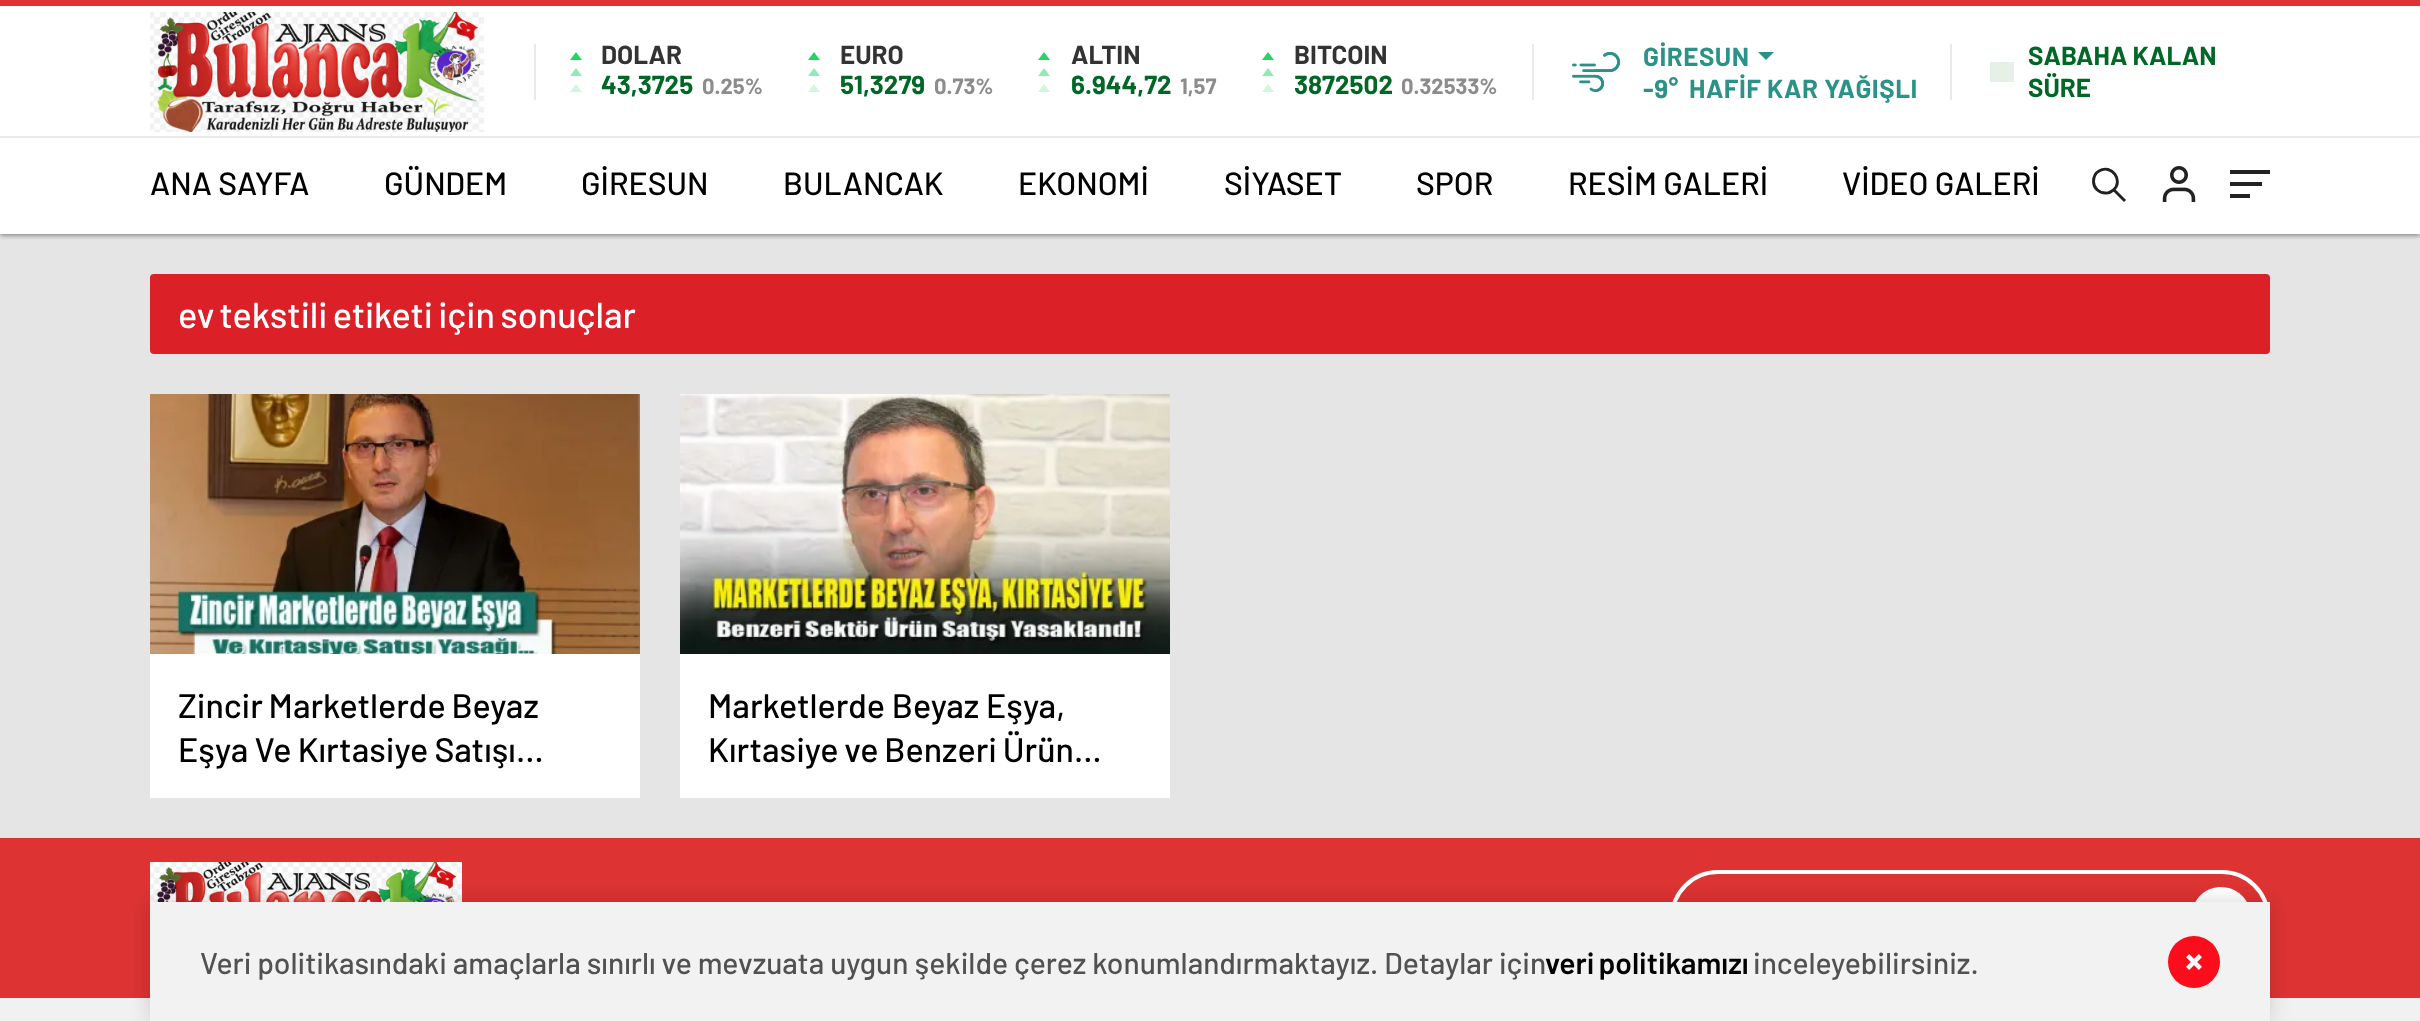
<svg xmlns="http://www.w3.org/2000/svg" width="2420" height="1021" viewBox="0 0 2420 1021">
  <defs>
    <filter id="blur1" x="-50%" y="-200%" width="200%" height="500%"><feGaussianBlur stdDeviation="2"/></filter>
    <filter id="blur2" x="-50%" y="-200%" width="200%" height="500%"><feGaussianBlur stdDeviation="10"/></filter>
  </defs>
  <rect width="100%" height="100%" fill="#e5e5e5"/>
  <rect x="0" y="2" width="2420" height="234" fill="#000000" fill-opacity="0.37" filter="url(#blur1)"/>
  <rect x="0" y="6" width="2420" height="228" fill="#ffffff"/>
  <rect x="0" y="0" width="2420" height="6" fill="#dd3333"/>
  <image x="150" y="12" width="334" height="120" href="img1.png"/>
  <rect x="534" y="44" width="2" height="56" fill="#e9e9e9"/>
  <path d="M582 60H570L576 52Z" fill="#25d366"/>
  <path d="M582 76H570L576 68Z" fill="#92e9b3"/>
  <path d="M582 92H570L576 84Z" fill="#d3f6e0"/>
  <text x="601" y="64" font-family="Barlow" font-size="26" font-weight="bold" fill="#333333">DOLAR</text>
  <text x="601" y="94" font-family="Barlow" font-size="26" font-weight="bold" fill="#006726">43,3725</text>
  <text x="702" y="94" font-family="Barlow" font-size="22" font-weight="bold" fill="#8c8c8c">0.25%</text>
  <path d="M820 60H808L814 52Z" fill="#25d366"/>
  <path d="M820 76H808L814 68Z" fill="#92e9b3"/>
  <path d="M820 92H808L814 84Z" fill="#d3f6e0"/>
  <text x="840" y="64" font-family="Barlow" font-size="26" font-weight="bold" fill="#333333">EURO</text>
  <text x="840" y="94" font-family="Barlow" font-size="26" font-weight="bold" fill="#006726">51,3279</text>
  <text x="934" y="94" font-family="Barlow" font-size="22" font-weight="bold" fill="#8c8c8c">0.73%</text>
  <path d="M1050 60H1038L1044 52Z" fill="#25d366"/>
  <path d="M1050 76H1038L1044 68Z" fill="#92e9b3"/>
  <path d="M1050 92H1038L1044 84Z" fill="#d3f6e0"/>
  <text x="1071" y="64" font-family="Barlow" font-size="26" font-weight="bold" fill="#333333">ALTIN</text>
  <text x="1071" y="94" font-family="Barlow" font-size="26" font-weight="bold" fill="#006726">6.944,72</text>
  <text x="1180" y="94" font-family="Barlow" font-size="22" font-weight="bold" fill="#8c8c8c">1,57</text>
  <path d="M1274 60H1262L1268 52Z" fill="#25d366"/>
  <path d="M1274 76H1262L1268 68Z" fill="#92e9b3"/>
  <path d="M1274 92H1262L1268 84Z" fill="#d3f6e0"/>
  <text x="1294" y="64" font-family="Barlow" font-size="26" font-weight="bold" fill="#333333">BITCOIN</text>
  <text x="1294" y="94" font-family="Barlow" font-size="26" font-weight="bold" fill="#006726">3872502</text>
  <text x="1401" y="94" font-family="Barlow" font-size="22" font-weight="bold" fill="#8c8c8c">0.32533%</text>
  <rect x="1532" y="44" width="2" height="56" fill="#e9e9e9"/>
  <image x="1572" y="52" width="48" height="40" href="img2.png"/>
  <text x="1643" y="66" font-family="Barlow" font-size="26" font-weight="bold" letter-spacing="0.5" fill="#2c9287">GİRESUN</text>
  <path d="M1758 52H1774L1766 60Z" fill="#2c9287"/>
  <text x="1643" y="98" font-family="Barlow" font-size="26" font-weight="bold" letter-spacing="0.5" fill="#2c9287">-9°</text>
  <text x="1689" y="98" font-family="Barlow" font-size="26" font-weight="bold" letter-spacing="0.5" fill="#2c9287">HAFİF KAR YAĞIŞLI</text>
  <rect x="1950" y="44" width="2" height="56" fill="#e9e9e9"/>
  <rect x="1990" y="62" width="24" height="20" fill="#e6f0e7"/>
  <text x="2028" y="65" font-family="Barlow" font-size="26" font-weight="bold" fill="#006726">SABAHA KALAN</text>
  <text x="2028" y="97" font-family="Barlow" font-size="26" font-weight="bold" fill="#006726">SÜRE</text>
  <rect x="0" y="136" width="2420" height="2" fill="#e9e9e9"/>
  <text x="150" y="195" font-family="Barlow" font-size="32" font-weight="500" fill="#000000">ANA SAYFA</text>
  <text x="384" y="195" font-family="Barlow" font-size="32" font-weight="500" fill="#000000">GÜNDEM</text>
  <text x="581" y="195" font-family="Barlow" font-size="32" font-weight="500" fill="#000000">GİRESUN</text>
  <text x="783" y="195" font-family="Barlow" font-size="32" font-weight="500" fill="#000000">BULANCAK</text>
  <text x="1018" y="195" font-family="Barlow" font-size="32" font-weight="500" fill="#000000">EKONOMİ</text>
  <text x="1224" y="195" font-family="Barlow" font-size="32" font-weight="500" fill="#000000">SİYASET</text>
  <text x="1416" y="195" font-family="Barlow" font-size="32" font-weight="500" fill="#000000">SPOR</text>
  <text x="1568" y="195" font-family="Barlow" font-size="32" font-weight="500" fill="#000000">RESİM GALERİ</text>
  <text x="1842" y="195" font-family="Barlow" font-size="32" font-weight="500" fill="#000000">VİDEO GALERİ</text>
  <path d="M2114.5 190.5L2125 201ZM2093.5 181.5C2093.5 177 2095.5 173 2099 171C2111.5 163.5 2124 180.5 2113.5 190C2111 192 2108.5 193.5 2105.5 193C2099 193 2093.5 188 2093.5 181.5Z" fill="none" stroke="#222222" stroke-width="2.9" stroke-linecap="round"/>
  <image x="2162" y="166" width="34" height="36" href="img3.png"/>
  <rect x="2230" y="170" width="40" height="4" fill="#222222"/>
  <rect x="2230" y="182" width="32" height="4" fill="#222222"/>
  <rect x="2230" y="194" width="20" height="4" fill="#222222"/>
  <rect x="150" y="274" width="2120" height="80" rx="4" fill="#db2027"/>
  <text x="178" y="328" word-spacing="-2" font-family="Barlow" font-size="36" font-weight="500" fill="#ffffff">ev tekstili etiketi için sonuçlar</text>
  <rect x="150" y="654" width="490" height="144" fill="#ffffff"/>
  <image x="150" y="394" width="490" height="260" href="img4.png"/>
  <text x="178" y="718" word-spacing="-1" font-family="Barlow" font-size="34" font-weight="500" fill="#000000">Zincir Marketlerde Beyaz</text>
  <text x="178" y="762" word-spacing="-0.5" font-family="Barlow" font-size="34" font-weight="500" fill="#000000">Eşya Ve Kırtasiye Satışı…</text>
  <rect x="680" y="654" width="490" height="144" fill="#ffffff"/>
  <image x="680" y="394" width="490" height="260" href="img5.png"/>
  <text x="708" y="718" font-family="Barlow" font-size="34" font-weight="500" fill="#000000">Marketlerde Beyaz Eşya,</text>
  <text x="708" y="762" word-spacing="-1" font-family="Barlow" font-size="34" font-weight="500" fill="#000000">Kırtasiye ve Benzeri Ürün…</text>
  <rect x="0" y="838" width="2420" height="160" fill="#dd3333"/>
  <image x="150" y="862" width="312" height="40" href="img6.png"/>
  <rect x="1672" y="872" width="596" height="92" rx="46" fill="none" stroke="#ffffff" stroke-width="4"/>
  <path d="M2221 947C2215 947 2209 945 2204 942C2180 926 2192 887 2221 887C2228 887 2234 889 2239 893C2262 911 2249 947 2221 947ZM2207 915V919H2228L2223 924L2225 927L2235 917L2225 907L2223 910L2228 915Z" fill="#ffffff"/>
  <rect x="0" y="998" width="2420" height="23" fill="#f1f1f1"/>
  <rect x="150" y="902" width="2120" height="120" fill="#222222" fill-opacity="0.16" filter="url(#blur2)"/>
  <rect x="150" y="902" width="2120" height="119" fill="#f2f2f2"/>
  <text x="200" y="974" font-family="Barlow" font-size="30" font-weight="500" fill="#515151">Veri politikasındaki amaçlarla sınırlı ve mevzuata uygun şekilde çerez konumlandırmaktayız. Detaylar için</text>
  <text x="1545" y="974" word-spacing="-2" font-family="Barlow" font-size="30" font-weight="600" fill="#000000">veri politikamızı</text>
  <text x="1753" y="974" font-family="Barlow" font-size="30" font-weight="500" fill="#515151">inceleyebilirsiniz.</text>
  <circle cx="2194" cy="962" r="26" fill="#fb0d1b"/>
  <image x="2186" y="954" width="16" height="16" href="img7.png"/>
</svg>
